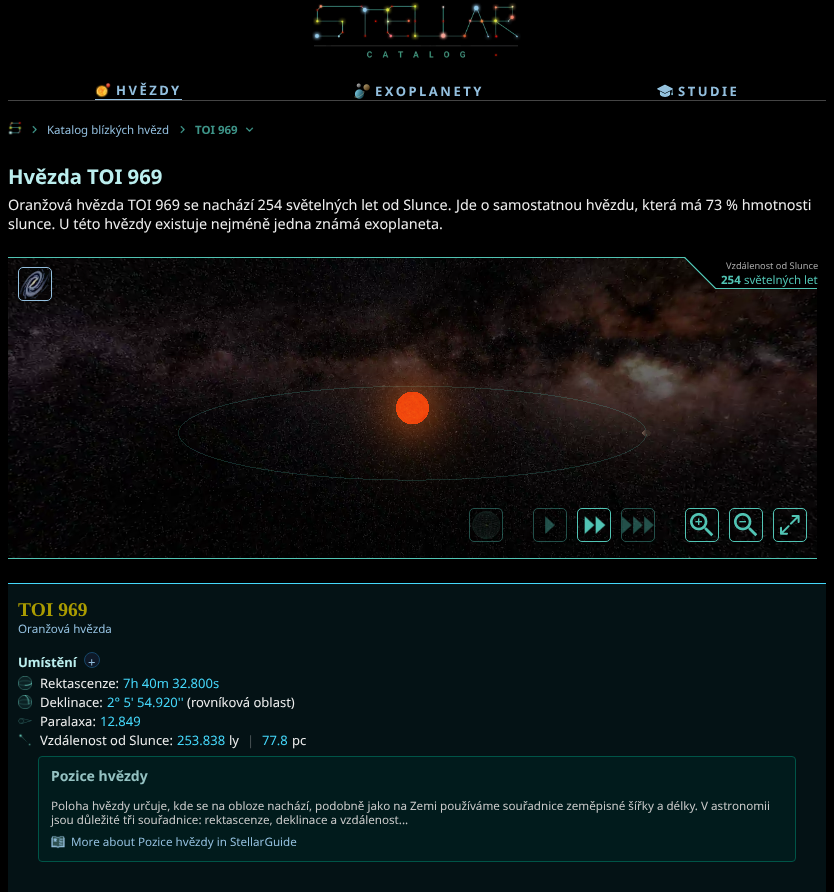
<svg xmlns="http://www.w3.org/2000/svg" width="834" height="892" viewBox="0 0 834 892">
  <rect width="100%" height="100%" fill="#000000"/>
  <image x="312" y="2" width="209" height="56" href="img1.png"/>
  <rect x="8" y="100" width="818" height="1" fill="#444444"/>
  <rect x="95" y="99" width="87" height="1" fill="#93bfde"/>
  <image x="95" y="83" width="16" height="15" href="img2.png"/>
  <text x="116" y="95" font-family="Noto Sans" font-size="13" font-weight="bold" letter-spacing="2.5" fill="#93bfde">HVĚZDY</text>
  <image x="354" y="83" width="16" height="16" href="img3.png"/>
  <text x="375" y="96" font-family="Noto Sans" font-size="13" font-weight="bold" letter-spacing="2.5" fill="#93bfde">EXOPLANETY</text>
  <image x="657" y="84" width="16" height="13" href="img4.png"/>
  <text x="678" y="96" font-family="Noto Sans" font-size="13" font-weight="bold" letter-spacing="2.5" fill="#93bfde">STUDIE</text>
  <image x="8" y="121" width="14" height="14" href="img5.png"/>
  <image x="32" y="125" width="5" height="9" href="img6.png"/>
  <text x="47" y="134" font-family="Noto Sans" font-size="11.5" fill="#93bfde">Katalog blízkých hvězd</text>
  <image x="180" y="125" width="5" height="9" href="img7.png"/>
  <text x="195" y="134" font-family="Noto Sans" font-size="11.5" font-weight="bold" fill="#3d9387">TOI 969</text>
  <image x="245" y="127" width="9" height="5" href="img8.png"/>
  <text x="8" y="184" font-family="Noto Sans" font-size="20.25" font-weight="bold" fill="#bbeeee">Hvězda TOI 969</text>
  <text x="8" y="210" font-family="Noto Sans" font-size="14.4" fill="#eeeeee">Oranžová hvězda TOI 969 se nachází 254 světelných let od Slunce.</text>
  <text x="456" y="210" font-family="Noto Sans" font-size="14.4" fill="#eeeeee">Jde o samostatnou hvězdu, která má 73 % hmotnosti</text>
  <text x="8" y="229" font-family="Noto Sans" font-size="14.4" fill="#eeeeee">slunce. U této hvězdy existuje nejméně jedna známá exoplaneta.</text>
  <rect x="8" y="257" width="676" height="1" fill="#51c4b4"/>
  <image x="8" y="258" width="809" height="300" href="img9.png"/>
  <rect x="18.5" y="267.5" width="33" height="33" rx="4.5" fill="none" stroke="#93bfde"/>
  <image x="20" y="269" width="31" height="31" href="img10.png"/>
  <image x="684" y="257" width="32" height="32" href="img11.png"/>
  <rect x="716" y="258" width="101" height="30" fill="#000000"/>
  <rect x="716" y="288" width="101" height="1" fill="#51c4b4"/>
  <text x="726" y="269" font-family="Noto Sans" font-size="9.25" fill="#a8a8a8">Vzdálenost od Slunce</text>
  <text x="721" y="284" font-family="Noto Sans" font-size="11.5" font-weight="bold" fill="#51c4b4">254</text>
  <text x="744" y="284" font-family="Noto Sans" font-size="11.5" fill="#51c4b4">světelných let</text>
  <rect x="8" y="558" width="809" height="1" fill="#51c4b4"/>
  <rect x="8" y="584" width="818" height="308" fill="#041215"/>
  <rect x="8" y="583" width="818" height="1" fill="#45d8fb"/>
  <text x="18" y="616" font-family="Liberation Serif" font-size="19.5" font-weight="bold" fill="#ab9c01">TOI 969</text>
  <text x="18" y="633" font-family="Noto Sans" font-size="11.65" fill="#93bfde">Oranžová hvězda</text>
  <text x="18" y="667" font-family="Noto Sans" font-size="13" font-weight="bold" fill="#bbeeee">Umístění</text>
  <circle cx="92" cy="660" r="7.5" fill="#0e1928" stroke="#164668"/>
  <text x="88" y="667" font-family="Noto Sans" font-size="13" fill="#93bfde">+</text>
  <image x="18" y="676" width="14" height="14" href="img12.png"/>
  <text x="40" y="688" font-family="Noto Sans" font-size="13" fill="#eeeeee">Rektascenze:</text>
  <text x="123" y="688" font-family="Noto Sans" font-size="13" fill="#45d8fb">7h 40m 32.800s</text>
  <image x="18" y="695" width="14" height="14" href="img13.png"/>
  <text x="40" y="707" font-family="Noto Sans" font-size="13" fill="#eeeeee">Deklinace:</text>
  <text x="107" y="707" font-family="Noto Sans" font-size="13" fill="#45d8fb">2° 5' 54.920''</text>
  <text x="187" y="707" font-family="Noto Sans" font-size="13" fill="#eeeeee">(rovníková oblast)</text>
  <image x="18" y="718" width="14" height="6" href="img14.png"/>
  <text x="40" y="726" font-family="Noto Sans" font-size="13" fill="#eeeeee">Paralaxa:</text>
  <text x="100" y="726" font-family="Noto Sans" font-size="13" fill="#45d8fb">12.849</text>
  <image x="18" y="733" width="13" height="13" href="img15.png"/>
  <text x="40" y="745" font-family="Noto Sans" font-size="13" fill="#eeeeee">Vzdálenost od Slunce:</text>
  <text x="177" y="745" font-family="Noto Sans" font-size="13" fill="#45d8fb">253.838</text>
  <text x="229" y="745" font-family="Noto Sans" font-size="13" fill="#eeeeee">ly</text>
  <text x="247" y="745" font-family="Noto Sans" font-size="13" fill="#4a5456">|</text>
  <text x="262" y="745" font-family="Noto Sans" font-size="13" fill="#45d8fb">77.8</text>
  <text x="292" y="745" font-family="Noto Sans" font-size="13" fill="#eeeeee">pc</text>
  <rect x="38.5" y="756.5" width="757" height="105" rx="3.5" fill="#011b1c" stroke="#005447"/>
  <text x="51" y="781" font-family="Noto Sans" font-size="14" font-weight="bold" fill="#94c1c1">Pozice hvězdy</text>
  <text x="51" y="810" font-family="Noto Sans" font-size="11.65" fill="#c9c9c9">Poloha hvězdy určuje, kde se na obloze nachází, podobně jako na Zemi používáme souřadnice zeměpisné šířky a délky. V astronomii</text>
  <text x="51" y="824" font-family="Noto Sans" font-size="11.65" fill="#c9c9c9">jsou důležité tři souřadnice: rektascenze, deklinace a vzdálenost...</text>
  <image x="51" y="835" width="14" height="14" href="img16.png"/>
  <text x="71" y="846" font-family="Noto Sans" font-size="11.65" fill="#93bfde">More about Pozice hvězdy in StellarGuide</text>
</svg>
